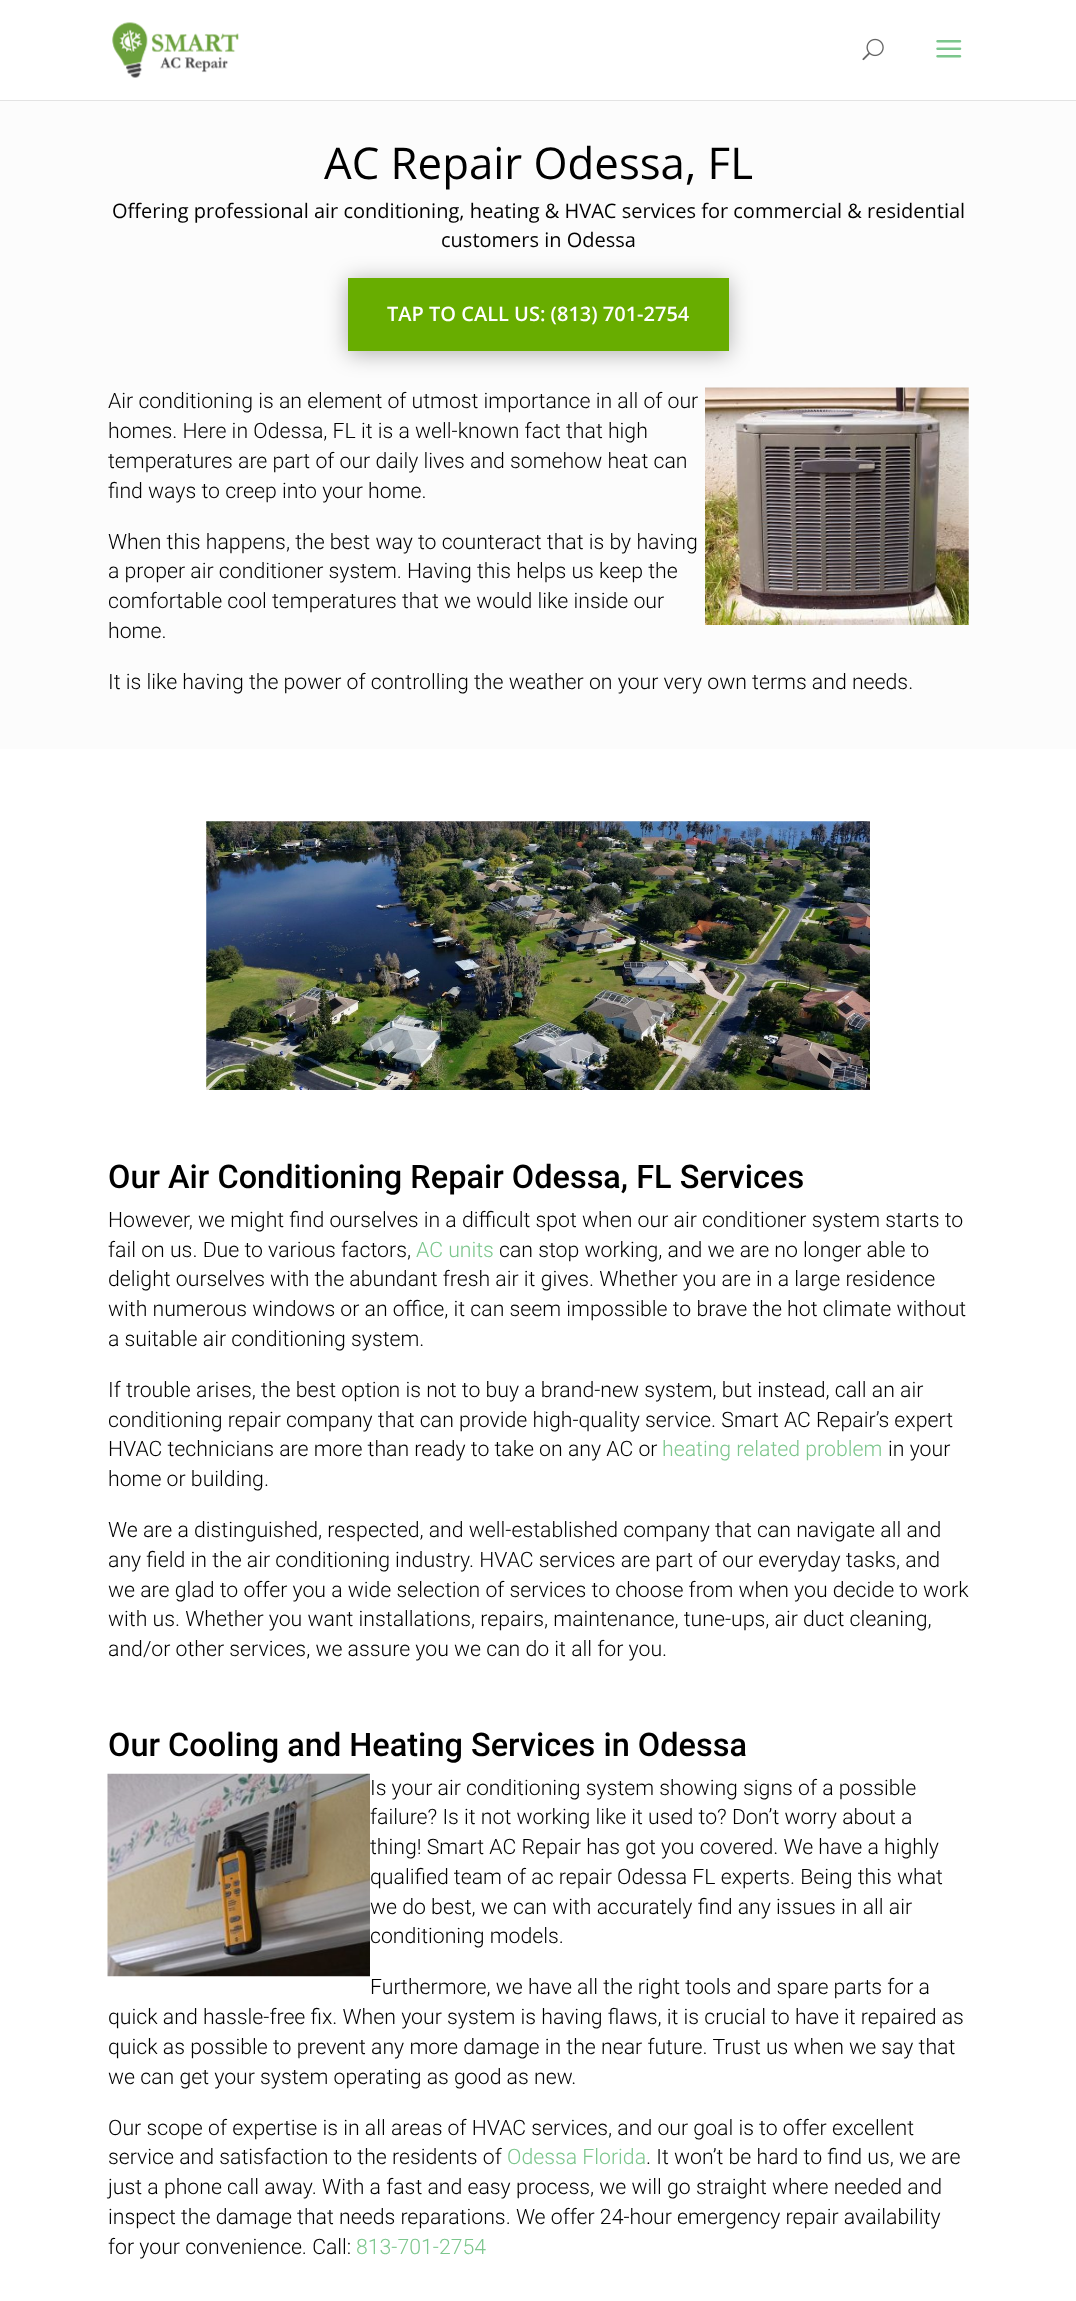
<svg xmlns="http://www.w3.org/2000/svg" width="1076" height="2301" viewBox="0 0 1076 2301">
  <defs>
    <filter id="blur1" x="-50%" y="-200%" width="200%" height="500%"><feGaussianBlur stdDeviation="11"/></filter>
  </defs>
  <rect width="100%" height="100%" fill="#ffffff"/>
  <rect x="0" y="100" width="1076" height="1" fill="#e3e3e3"/>
  <image x="112" y="22" width="127" height="56" href="img1.png"/>
  <image x="862" y="38" width="22" height="23" href="img2.png"/>
  <image x="936" y="40" width="26" height="18" href="img3.png"/>
  <rect x="0" y="101" width="1076" height="648" fill="#fcfcfc"/>
  <text x="324" y="179" font-family="Open Sans" font-size="43.75" fill="#000000">AC Repair Odessa, FL</text>
  <text x="112" y="218" font-family="Open Sans" font-size="20" fill="#000000">Offering professional air conditioning, heating &amp; HVAC services for commercial &amp; residential</text>
  <text x="441" y="247" font-family="Open Sans" font-size="20" fill="#000000">customers in Odessa</text>
  <rect x="348" y="280" width="381" height="74" fill="#000000" fill-opacity="0.3" filter="url(#blur1)"/>
  <rect x="348" y="278" width="381" height="73" fill="#68ad00"/>
  <text x="387" y="321" font-family="Open Sans" font-size="20" font-weight="600" fill="#ffffff">TAP TO CALL US: (813) 701-2754</text>
  <text x="108" y="408" font-family="Roboto" font-size="21.25" font-weight="300" fill="#000000">Air conditioning is an element of utmost importance in all of our</text>
  <image x="705" y="387" width="264" height="238" href="img4.png"/>
  <text x="108" y="438" font-family="Roboto" font-size="21.25" font-weight="300" fill="#000000">homes. Here in Odessa, FL it is a well-known fact that high</text>
  <text x="108" y="468" font-family="Roboto" font-size="21.25" font-weight="300" fill="#000000">temperatures are part of our daily lives and somehow heat can</text>
  <text x="108" y="498" font-family="Roboto" font-size="21.25" font-weight="300" fill="#000000">find ways to creep into your home.</text>
  <text x="108" y="549" font-family="Roboto" font-size="21.25" font-weight="300" fill="#000000">When this happens, the best way to counteract that is by having</text>
  <text x="108" y="578" font-family="Roboto" font-size="21.25" font-weight="300" fill="#000000">a proper air conditioner system. Having this helps us keep the</text>
  <text x="108" y="608" font-family="Roboto" font-size="21.25" font-weight="300" fill="#000000">comfortable cool temperatures that we would like inside our</text>
  <text x="108" y="638" font-family="Roboto" font-size="21.25" font-weight="300" fill="#000000">home.</text>
  <text x="108" y="689" font-family="Roboto" font-size="21.25" font-weight="300" fill="#000000">It is like having the power of controlling the weather on your very own terms and needs.</text>
  <image x="206" y="821" width="664" height="269" href="img5.png"/>
  <text x="108" y="1188" font-family="Roboto" font-size="32.5" font-weight="500" fill="#000000">Our Air Conditioning Repair Odessa, FL Services</text>
  <text x="108" y="1227" font-family="Roboto" font-size="21.25" font-weight="300" fill="#000000">However, we might find ourselves in a difficult spot when our air conditioner system starts to</text>
  <text x="108" y="1257" font-family="Roboto" font-size="21.25" font-weight="300" fill="#000000">fail on us. Due to various factors,</text>
  <text x="416" y="1257" font-family="Roboto" font-size="21.25" font-weight="300" fill="#7cc68d">AC units</text>
  <text x="499" y="1257" font-family="Roboto" font-size="21.25" font-weight="300" fill="#000000">can stop working, and we are no longer able to</text>
  <text x="108" y="1286" font-family="Roboto" font-size="21.25" font-weight="300" fill="#000000">delight ourselves with the abundant fresh air it gives. Whether you are in a large residence</text>
  <text x="108" y="1316" font-family="Roboto" font-size="21.25" font-weight="300" fill="#000000">with numerous windows or an office, it can seem impossible to brave the hot climate without</text>
  <text x="108" y="1346" font-family="Roboto" font-size="21.25" font-weight="300" fill="#000000">a suitable air conditioning system.</text>
  <text x="108" y="1397" font-family="Roboto" font-size="21.25" font-weight="300" fill="#000000">If trouble arises, the best option is not to buy a brand-new system, but instead, call an air</text>
  <text x="108" y="1427" font-family="Roboto" font-size="21.25" font-weight="300" fill="#000000">conditioning repair company that can provide high-quality service. Smart AC Repair’s expert</text>
  <text x="108" y="1456" font-family="Roboto" font-size="21.25" font-weight="300" fill="#000000">HVAC technicians are more than ready to take on any AC or</text>
  <text x="662" y="1456" font-family="Roboto" font-size="21.25" font-weight="300" fill="#7cc68d">heating related problem</text>
  <text x="888" y="1456" font-family="Roboto" font-size="21.25" font-weight="300" fill="#000000">in your</text>
  <text x="108" y="1486" font-family="Roboto" font-size="21.25" font-weight="300" fill="#000000">home or building.</text>
  <text x="108" y="1537" font-family="Roboto" font-size="21.25" font-weight="300" fill="#000000">We are a distinguished, respected, and well-established company that can navigate all and</text>
  <text x="108" y="1567" font-family="Roboto" font-size="21.25" font-weight="300" fill="#000000">any field in the air conditioning industry. HVAC services are part of our everyday tasks, and</text>
  <text x="108" y="1597" font-family="Roboto" font-size="21.25" font-weight="300" fill="#000000">we are glad to offer you a wide selection of services to choose from when you decide to work</text>
  <text x="108" y="1626" font-family="Roboto" font-size="21.25" font-weight="300" fill="#000000">with us. Whether you want installations, repairs, maintenance, tune-ups, air duct cleaning,</text>
  <text x="108" y="1656" font-family="Roboto" font-size="21.25" font-weight="300" fill="#000000">and/or other services, we assure you we can do it all for you.</text>
  <text x="108" y="1756" font-family="Roboto" font-size="32.5" font-weight="500" fill="#000000">Our Cooling and Heating Services in Odessa</text>
  <image x="107" y="1773" width="263" height="204" href="img6.png"/>
  <text x="370" y="1795" font-family="Roboto" font-size="21.25" font-weight="300" fill="#000000">Is your air conditioning system showing signs of a possible</text>
  <text x="370" y="1824" font-family="Roboto" font-size="21.25" font-weight="300" fill="#000000">failure? Is it not working like it used to? Don’t worry about a</text>
  <text x="370" y="1854" font-family="Roboto" font-size="21.25" font-weight="300" fill="#000000">thing! Smart AC Repair has got you covered. We have a highly</text>
  <text x="370" y="1884" font-family="Roboto" font-size="21.25" font-weight="300" fill="#000000">qualified team of ac repair Odessa FL experts. Being this what</text>
  <text x="370" y="1914" font-family="Roboto" font-size="21.25" font-weight="300" fill="#000000">we do best, we can with accurately find any issues in all air</text>
  <text x="370" y="1943" font-family="Roboto" font-size="21.25" font-weight="300" fill="#000000">conditioning models.</text>
  <text x="370" y="1994" font-family="Roboto" font-size="21.25" font-weight="300" fill="#000000">Furthermore, we have all the right tools and spare parts for a</text>
  <text x="108" y="2024" font-family="Roboto" font-size="21.25" font-weight="300" fill="#000000">quick and hassle-free fix. When your system is having flaws, it is crucial to have it repaired as</text>
  <text x="108" y="2054" font-family="Roboto" font-size="21.25" font-weight="300" fill="#000000">quick as possible to prevent any more damage in the near future. Trust us when we say that</text>
  <text x="108" y="2084" font-family="Roboto" font-size="21.25" font-weight="300" fill="#000000">we can get your system operating as good as new.</text>
  <text x="108" y="2135" font-family="Roboto" font-size="21.25" font-weight="300" fill="#000000">Our scope of expertise is in all areas of HVAC services, and our goal is to offer excellent</text>
  <text x="108" y="2164" font-family="Roboto" font-size="21.25" font-weight="300" fill="#000000">service and satisfaction to the residents of</text>
  <text x="507" y="2164" font-family="Roboto" font-size="21.25" font-weight="300" fill="#7cc68d">Odessa Florida</text>
  <text x="646" y="2164" font-family="Roboto" font-size="21.25" font-weight="300" fill="#000000">. It won’t be hard to find us, we are</text>
  <text x="108" y="2194" font-family="Roboto" font-size="21.25" font-weight="300" fill="#000000">just a phone call away. With a fast and easy process, we will go straight where needed and</text>
  <text x="108" y="2224" font-family="Roboto" font-size="21.25" font-weight="300" fill="#000000">inspect the damage that needs reparations. We offer 24-hour emergency repair availability</text>
  <text x="108" y="2254" font-family="Roboto" font-size="21.25" font-weight="300" fill="#000000">for your convenience. Call:</text>
  <text x="356" y="2254" font-family="Roboto" font-size="21.25" font-weight="300" fill="#7cc68d">813-701-2754</text>
</svg>
